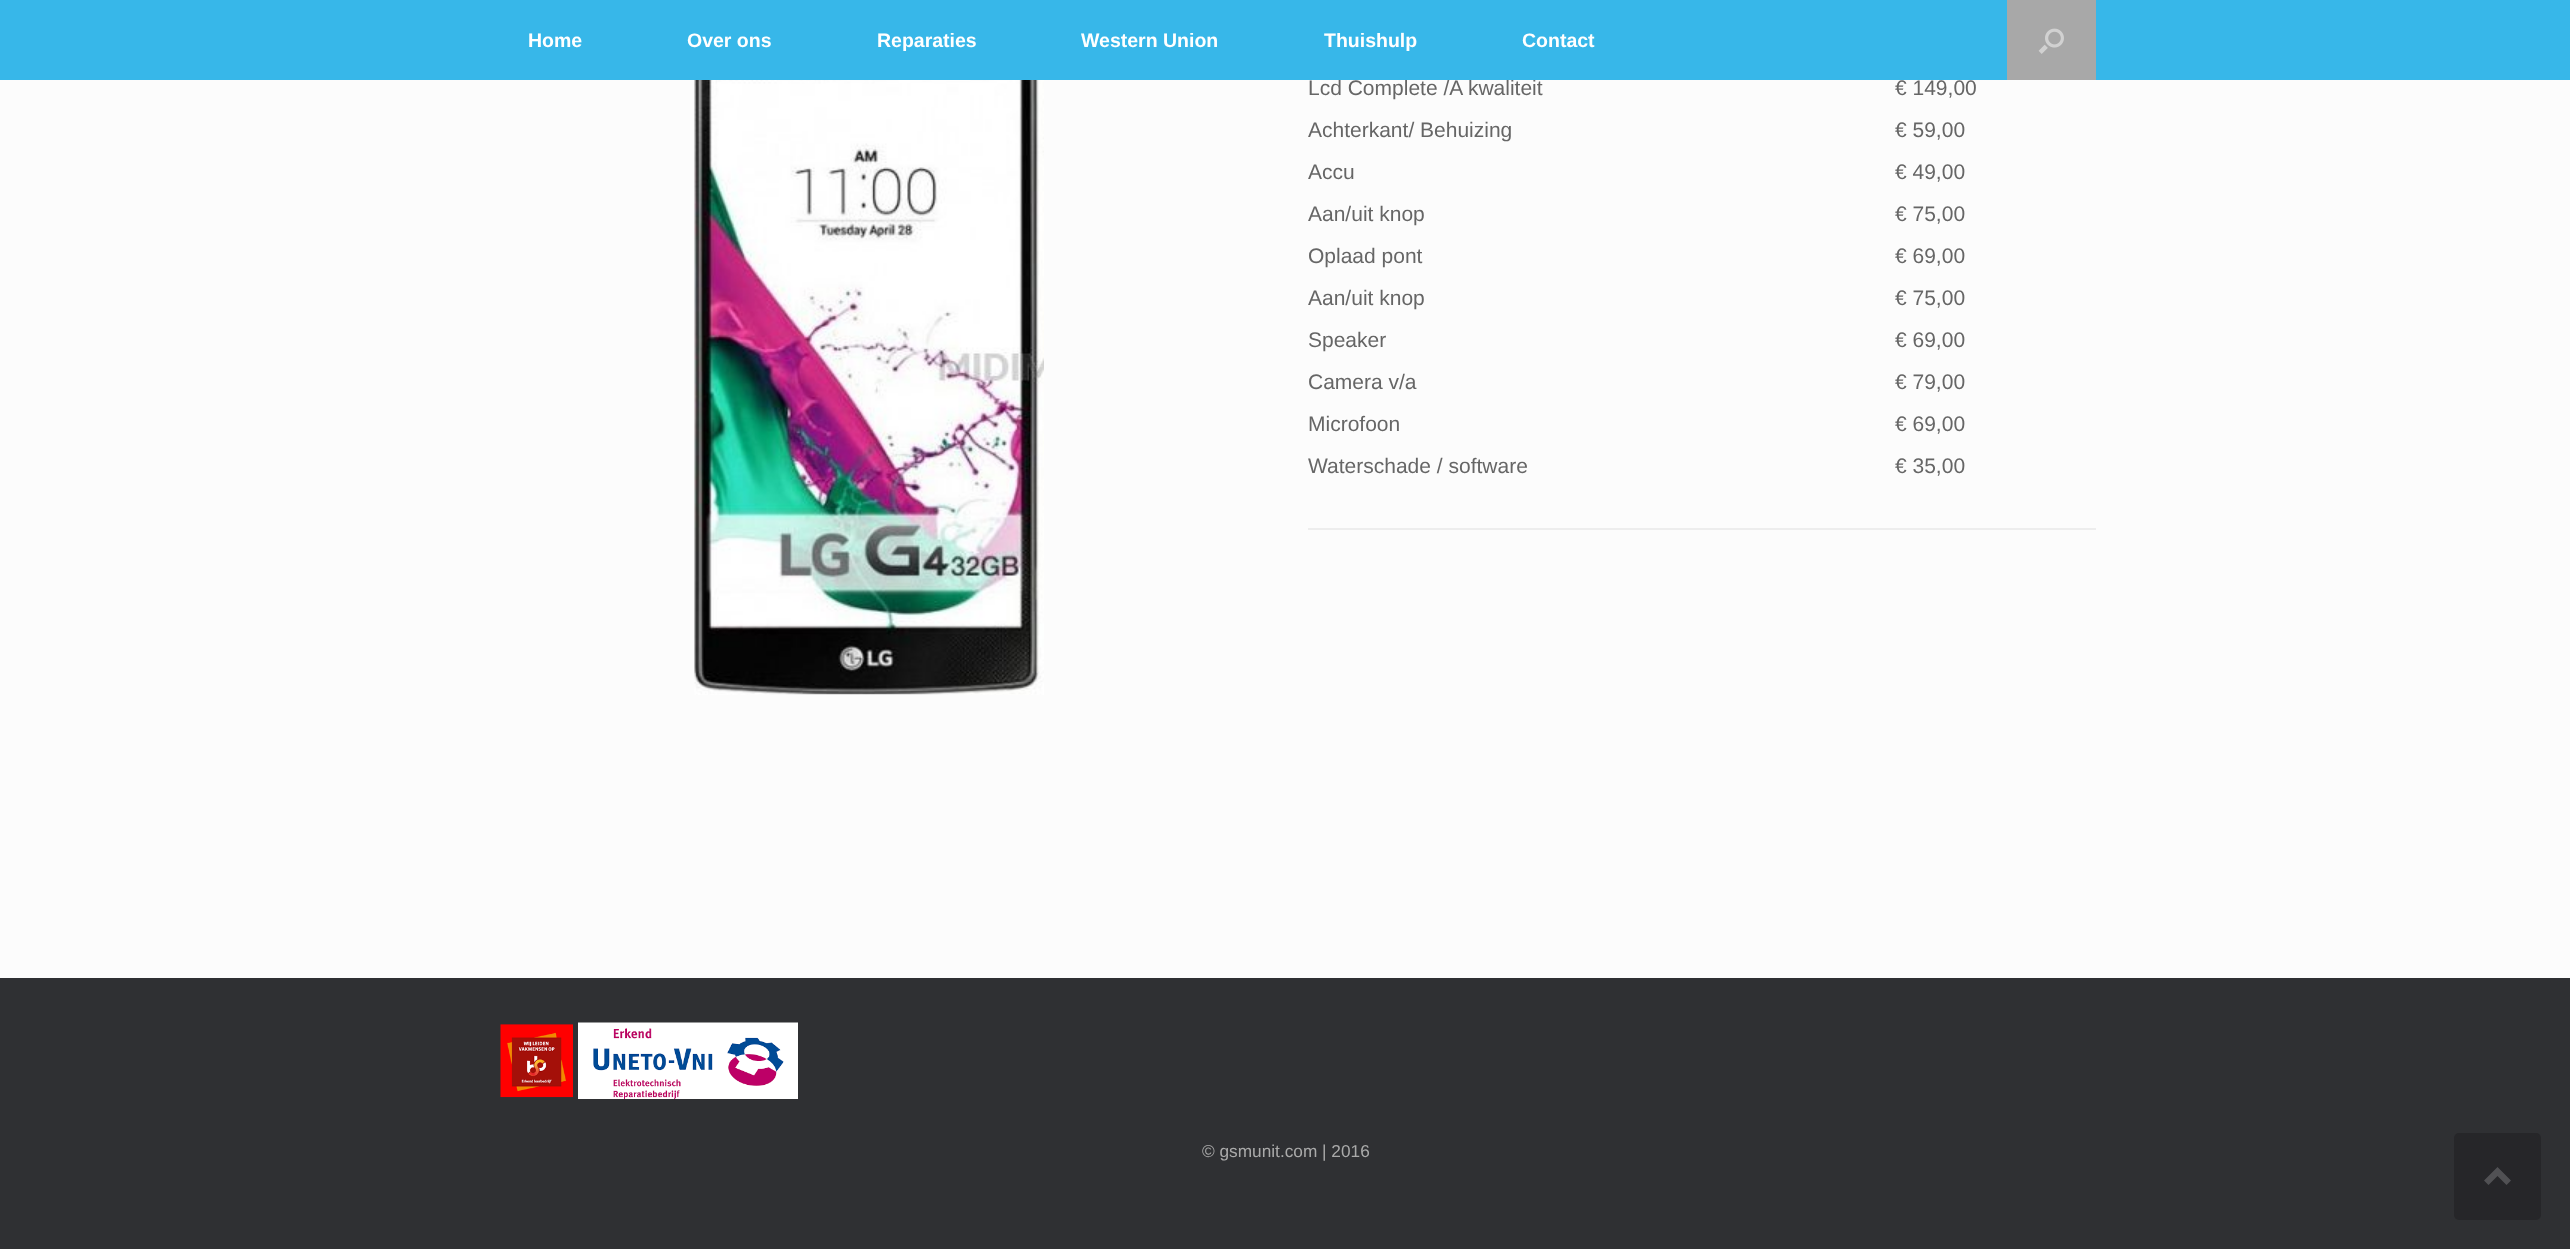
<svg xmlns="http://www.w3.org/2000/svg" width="2570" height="1249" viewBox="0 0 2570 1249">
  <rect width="100%" height="100%" fill="#2f3033"/>
  <rect x="0" y="80" width="2570" height="898" fill="#fcfcfc"/>
  <text x="1308" y="95" font-family="Liberation Sans" font-size="21" fill="#666666">Lcd Complete /A kwaliteit</text>
  <rect x="0" y="0" width="2570" height="80" fill="#37b7e9"/>
  <text x="528" y="47" font-family="Liberation Sans" font-size="19.5" font-weight="bold" fill="#ffffff">Home</text>
  <text x="687" y="47" font-family="Liberation Sans" font-size="19.5" font-weight="bold" fill="#ffffff">Over ons</text>
  <text x="877" y="47" font-family="Liberation Sans" font-size="19.5" font-weight="bold" fill="#ffffff">Reparaties</text>
  <text x="1081" y="47" font-family="Liberation Sans" font-size="19.5" font-weight="bold" fill="#ffffff">Western Union</text>
  <text x="1324" y="47" font-family="Liberation Sans" font-size="19.5" font-weight="bold" fill="#ffffff">Thuishulp</text>
  <text x="1522" y="47" font-family="Liberation Sans" font-size="19.5" font-weight="bold" fill="#ffffff">Contact</text>
  <rect x="2007" y="0" width="89" height="80" fill="#a8a8a8"/>
  <image x="2038" y="28" width="26" height="26" href="img1.png"/>
  <image x="694" y="80" width="350" height="615" href="img2.png"/>
  <rect x="1308" y="528" width="788" height="2" fill="#ededed"/>
  <text x="1895" y="95" font-family="Liberation Sans" font-size="21" fill="#666666">€ 149,00</text>
  <text x="1308" y="137" font-family="Liberation Sans" font-size="21" fill="#666666">Achterkant/ Behuizing</text>
  <text x="1895" y="137" font-family="Liberation Sans" font-size="21" fill="#666666">€ 59,00</text>
  <text x="1308" y="179" font-family="Liberation Sans" font-size="21" fill="#666666">Accu</text>
  <text x="1895" y="179" font-family="Liberation Sans" font-size="21" fill="#666666">€ 49,00</text>
  <text x="1308" y="221" font-family="Liberation Sans" font-size="21" fill="#666666">Aan/uit knop</text>
  <text x="1895" y="221" font-family="Liberation Sans" font-size="21" fill="#666666">€ 75,00</text>
  <text x="1308" y="263" font-family="Liberation Sans" font-size="21" fill="#666666">Oplaad pont</text>
  <text x="1895" y="263" font-family="Liberation Sans" font-size="21" fill="#666666">€ 69,00</text>
  <text x="1308" y="305" font-family="Liberation Sans" font-size="21" fill="#666666">Aan/uit knop</text>
  <text x="1895" y="305" font-family="Liberation Sans" font-size="21" fill="#666666">€ 75,00</text>
  <text x="1308" y="347" font-family="Liberation Sans" font-size="21" fill="#666666">Speaker</text>
  <text x="1895" y="347" font-family="Liberation Sans" font-size="21" fill="#666666">€ 69,00</text>
  <text x="1308" y="389" font-family="Liberation Sans" font-size="21" fill="#666666">Camera v/a</text>
  <text x="1895" y="389" font-family="Liberation Sans" font-size="21" fill="#666666">€ 79,00</text>
  <text x="1308" y="431" font-family="Liberation Sans" font-size="21" fill="#666666">Microfoon</text>
  <text x="1895" y="431" font-family="Liberation Sans" font-size="21" fill="#666666">€ 69,00</text>
  <text x="1308" y="473" font-family="Liberation Sans" font-size="21" fill="#666666">Waterschade / software</text>
  <text x="1895" y="473" font-family="Liberation Sans" font-size="21" fill="#666666">€ 35,00</text>
  <image x="500" y="1022" width="298" height="77" href="img3.png"/>
  <text x="1202" y="1157" font-family="Liberation Sans" font-size="17.25" fill="#aaaaaa">© gsmunit.com | 2016</text>
  <rect x="2454" y="1133" width="87" height="87" rx="5" fill="#262629"/>
  <path d="M2511 1180.5L2497.5 1167L2484 1180.5L2488.5 1185L2497.5 1176L2506.5 1185Z" fill="#515154"/>
</svg>
